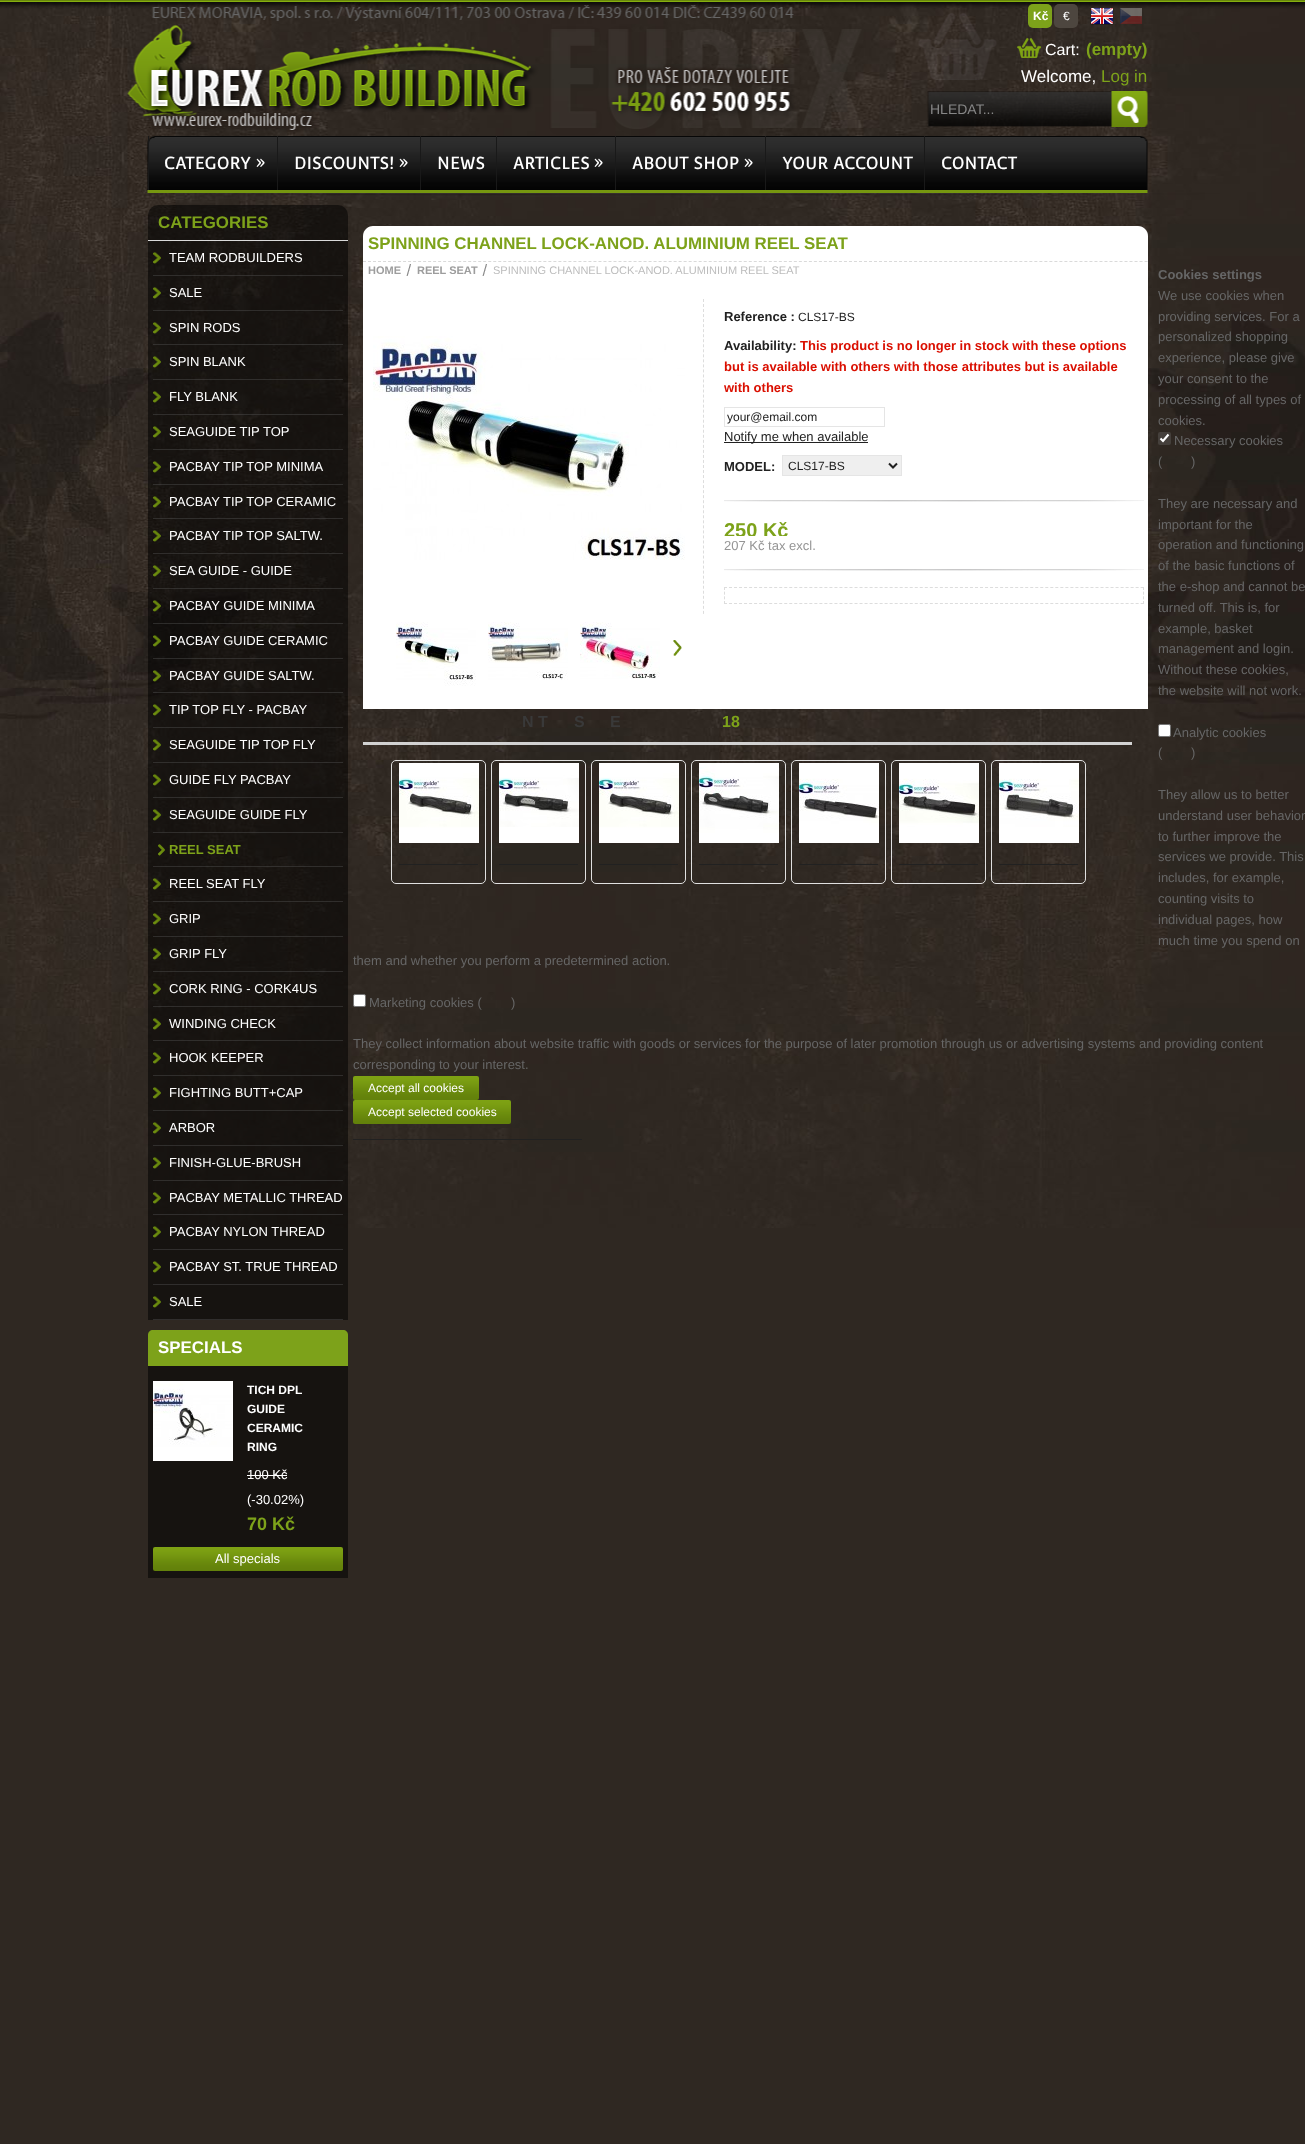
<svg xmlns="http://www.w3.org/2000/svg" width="1305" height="2144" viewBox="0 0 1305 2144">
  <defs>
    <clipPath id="clip1"><rect x="724" y="488" width="420" height="48"/></clipPath>
  </defs>
  <rect width="100%" height="100%" fill="#2f2822"/>
  <image x="0" y="2" width="1305" height="1226" href="img1.png"/>
  <image x="0" y="0" width="1305" height="197" href="img2.png"/>
  <rect x="1028" y="4" width="24" height="24" rx="5" fill="#7da21a"/>
  <text x="1033" y="20" font-family="Liberation Sans" font-size="12" font-weight="bold" fill="#ffffff">Kč</text>
  <rect x="1054" y="4" width="24" height="24" rx="5" fill="#4d463f"/>
  <text x="1063" y="20" font-family="Liberation Sans" font-size="12" fill="#ffffff">€</text>
  <image x="1090" y="8" width="24" height="17" href="img3.png"/>
  <image x="1120" y="8" width="22" height="16" href="img4.png"/>
  <image x="1017" y="38" width="24" height="20" href="img5.png"/>
  <text x="1045" y="55" font-family="Liberation Sans" font-size="16" fill="#ffffff">Cart:</text>
  <text x="1086" y="55" font-family="Liberation Sans" font-size="17" font-weight="bold" fill="#7da21a">(empty)</text>
  <text x="1021" y="82" font-family="Liberation Sans" font-size="17" fill="#ffffff">Welcome,</text>
  <text x="1101" y="82" font-family="Liberation Sans" font-size="17" fill="#7da21a">Log in</text>
  <text x="930" y="114" font-family="Liberation Sans" font-size="14" fill="#878787">HLEDAT...</text>
  <rect x="148" y="136" width="1" height="54" fill="#191919"/>
  <text x="164" y="169" font-family="Convergence" font-size="17" fill="#ffffff">CATEGORY</text>
  <text x="256" y="168" font-family="Convergence" font-size="17" fill="#ffffff">»</text>
  <rect x="277" y="136" width="1" height="54" fill="#191919"/>
  <text x="294" y="169" font-family="Convergence" font-size="17" fill="#ffffff">DISCOUNTS!</text>
  <text x="399" y="168" font-family="Convergence" font-size="17" fill="#ffffff">»</text>
  <rect x="420" y="136" width="1" height="54" fill="#191919"/>
  <text x="437" y="169" font-family="Convergence" font-size="17" fill="#ffffff">NEWS</text>
  <rect x="496" y="136" width="1" height="54" fill="#191919"/>
  <text x="513" y="169" font-family="Convergence" font-size="17" fill="#ffffff">ARTICLES</text>
  <text x="594" y="168" font-family="Convergence" font-size="17" fill="#ffffff">»</text>
  <rect x="615" y="136" width="1" height="54" fill="#191919"/>
  <text x="632" y="169" font-family="Convergence" font-size="17" fill="#ffffff">ABOUT SHOP</text>
  <text x="744" y="168" font-family="Convergence" font-size="17" fill="#ffffff">»</text>
  <rect x="765" y="136" width="1" height="54" fill="#191919"/>
  <text x="782" y="169" font-family="Convergence" font-size="17" fill="#ffffff">YOUR ACCOUNT</text>
  <rect x="924" y="136" width="1" height="54" fill="#191919"/>
  <text x="941" y="169" font-family="Convergence" font-size="17" fill="#ffffff">CONTACT</text>
  <image x="148" y="205" width="200" height="1115" href="img6.png"/>
  <rect x="148" y="240" width="200" height="1" fill="#dadada"/>
  <text x="158" y="228" font-family="Liberation Sans" font-size="16.9" font-weight="bold" fill="#7da21a">CATEGORIES</text>
  <rect x="153" y="275" width="190" height="1" fill="#575757" fill-opacity="0.4"/>
  <image x="153" y="252" width="8" height="12" href="img7.png"/>
  <text x="169" y="262" font-family="Liberation Sans" font-size="13" fill="#ffffff">TEAM RODBUILDERS</text>
  <rect x="153" y="310" width="190" height="1" fill="#575757" fill-opacity="0.4"/>
  <image x="153" y="287" width="8" height="12" href="img8.png"/>
  <text x="169" y="297" font-family="Liberation Sans" font-size="13" fill="#ffffff">SALE</text>
  <rect x="153" y="344" width="190" height="1" fill="#575757" fill-opacity="0.4"/>
  <image x="153" y="322" width="8" height="12" href="img9.png"/>
  <text x="169" y="332" font-family="Liberation Sans" font-size="13" fill="#ffffff">SPIN RODS</text>
  <rect x="153" y="379" width="190" height="1" fill="#575757" fill-opacity="0.4"/>
  <image x="153" y="356" width="8" height="12" href="img10.png"/>
  <text x="169" y="366" font-family="Liberation Sans" font-size="13" fill="#ffffff">SPIN BLANK</text>
  <rect x="153" y="414" width="190" height="1" fill="#575757" fill-opacity="0.4"/>
  <image x="153" y="391" width="8" height="12" href="img11.png"/>
  <text x="169" y="401" font-family="Liberation Sans" font-size="13" fill="#ffffff">FLY BLANK</text>
  <rect x="153" y="449" width="190" height="1" fill="#575757" fill-opacity="0.4"/>
  <image x="153" y="426" width="8" height="12" href="img12.png"/>
  <text x="169" y="436" font-family="Liberation Sans" font-size="13" fill="#ffffff">SEAGUIDE TIP TOP</text>
  <rect x="153" y="484" width="190" height="1" fill="#575757" fill-opacity="0.4"/>
  <image x="153" y="461" width="8" height="12" href="img13.png"/>
  <text x="169" y="471" font-family="Liberation Sans" font-size="13" fill="#ffffff">PACBAY TIP TOP MINIMA</text>
  <rect x="153" y="518" width="190" height="1" fill="#575757" fill-opacity="0.4"/>
  <image x="153" y="496" width="8" height="12" href="img14.png"/>
  <text x="169" y="506" font-family="Liberation Sans" font-size="13" fill="#ffffff">PACBAY TIP TOP CERAMIC</text>
  <rect x="153" y="553" width="190" height="1" fill="#575757" fill-opacity="0.4"/>
  <image x="153" y="530" width="8" height="12" href="img15.png"/>
  <text x="169" y="540" font-family="Liberation Sans" font-size="13" fill="#ffffff">PACBAY TIP TOP SALTW.</text>
  <rect x="153" y="588" width="190" height="1" fill="#575757" fill-opacity="0.4"/>
  <image x="153" y="565" width="8" height="12" href="img16.png"/>
  <text x="169" y="575" font-family="Liberation Sans" font-size="13" fill="#ffffff">SEA GUIDE - GUIDE</text>
  <rect x="153" y="623" width="190" height="1" fill="#575757" fill-opacity="0.4"/>
  <image x="153" y="600" width="8" height="12" href="img17.png"/>
  <text x="169" y="610" font-family="Liberation Sans" font-size="13" fill="#ffffff">PACBAY GUIDE MINIMA</text>
  <rect x="153" y="658" width="190" height="1" fill="#575757" fill-opacity="0.4"/>
  <image x="153" y="635" width="8" height="12" href="img18.png"/>
  <text x="169" y="645" font-family="Liberation Sans" font-size="13" fill="#ffffff">PACBAY GUIDE CERAMIC</text>
  <rect x="153" y="692" width="190" height="1" fill="#575757" fill-opacity="0.4"/>
  <image x="153" y="670" width="8" height="12" href="img19.png"/>
  <text x="169" y="680" font-family="Liberation Sans" font-size="13" fill="#ffffff">PACBAY GUIDE SALTW.</text>
  <rect x="153" y="727" width="190" height="1" fill="#575757" fill-opacity="0.4"/>
  <image x="153" y="704" width="8" height="12" href="img20.png"/>
  <text x="169" y="714" font-family="Liberation Sans" font-size="13" fill="#ffffff">TIP TOP FLY - PACBAY</text>
  <rect x="153" y="762" width="190" height="1" fill="#575757" fill-opacity="0.4"/>
  <image x="153" y="739" width="8" height="12" href="img21.png"/>
  <text x="169" y="749" font-family="Liberation Sans" font-size="13" fill="#ffffff">SEAGUIDE TIP TOP FLY</text>
  <rect x="153" y="797" width="190" height="1" fill="#575757" fill-opacity="0.4"/>
  <image x="153" y="774" width="8" height="12" href="img22.png"/>
  <text x="169" y="784" font-family="Liberation Sans" font-size="13" fill="#ffffff">GUIDE FLY PACBAY</text>
  <rect x="153" y="832" width="190" height="1" fill="#575757" fill-opacity="0.4"/>
  <image x="153" y="809" width="8" height="12" href="img23.png"/>
  <text x="169" y="819" font-family="Liberation Sans" font-size="13" fill="#ffffff">SEAGUIDE GUIDE FLY</text>
  <rect x="153" y="866" width="190" height="1" fill="#575757" fill-opacity="0.4"/>
  <image x="158" y="844" width="7" height="12" href="img24.png"/>
  <text x="169" y="854" font-family="Liberation Sans" font-size="13" font-weight="bold" fill="#7da21a">REEL SEAT</text>
  <rect x="153" y="901" width="190" height="1" fill="#575757" fill-opacity="0.4"/>
  <image x="153" y="878" width="8" height="12" href="img25.png"/>
  <text x="169" y="888" font-family="Liberation Sans" font-size="13" fill="#ffffff">REEL SEAT FLY</text>
  <rect x="153" y="936" width="190" height="1" fill="#575757" fill-opacity="0.4"/>
  <image x="153" y="913" width="8" height="12" href="img26.png"/>
  <text x="169" y="923" font-family="Liberation Sans" font-size="13" fill="#ffffff">GRIP</text>
  <rect x="153" y="971" width="190" height="1" fill="#575757" fill-opacity="0.4"/>
  <image x="153" y="948" width="8" height="12" href="img27.png"/>
  <text x="169" y="958" font-family="Liberation Sans" font-size="13" fill="#ffffff">GRIP FLY</text>
  <rect x="153" y="1006" width="190" height="1" fill="#575757" fill-opacity="0.4"/>
  <image x="153" y="983" width="8" height="12" href="img28.png"/>
  <text x="169" y="993" font-family="Liberation Sans" font-size="13" fill="#ffffff">CORK RING - CORK4US</text>
  <rect x="153" y="1040" width="190" height="1" fill="#575757" fill-opacity="0.4"/>
  <image x="153" y="1018" width="8" height="12" href="img29.png"/>
  <text x="169" y="1028" font-family="Liberation Sans" font-size="13" fill="#ffffff">WINDING CHECK</text>
  <rect x="153" y="1075" width="190" height="1" fill="#575757" fill-opacity="0.4"/>
  <image x="153" y="1052" width="8" height="12" href="img30.png"/>
  <text x="169" y="1062" font-family="Liberation Sans" font-size="13" fill="#ffffff">HOOK KEEPER</text>
  <rect x="153" y="1110" width="190" height="1" fill="#575757" fill-opacity="0.4"/>
  <image x="153" y="1087" width="8" height="12" href="img31.png"/>
  <text x="169" y="1097" font-family="Liberation Sans" font-size="13" fill="#ffffff">FIGHTING BUTT+CAP</text>
  <rect x="153" y="1145" width="190" height="1" fill="#575757" fill-opacity="0.4"/>
  <image x="153" y="1122" width="8" height="12" href="img32.png"/>
  <text x="169" y="1132" font-family="Liberation Sans" font-size="13" fill="#ffffff">ARBOR</text>
  <rect x="153" y="1180" width="190" height="1" fill="#575757" fill-opacity="0.4"/>
  <image x="153" y="1157" width="8" height="12" href="img33.png"/>
  <text x="169" y="1167" font-family="Liberation Sans" font-size="13" fill="#ffffff">FINISH-GLUE-BRUSH</text>
  <rect x="153" y="1214" width="190" height="1" fill="#302e2d"/>
  <image x="153" y="1192" width="8" height="12" href="img34.png"/>
  <text x="169" y="1202" font-family="Liberation Sans" font-size="13" fill="#ffffff">PACBAY METALLIC THREAD</text>
  <rect x="153" y="1249" width="190" height="1" fill="#302e2d"/>
  <image x="153" y="1226" width="8" height="12" href="img35.png"/>
  <text x="169" y="1236" font-family="Liberation Sans" font-size="13" fill="#ffffff">PACBAY NYLON THREAD</text>
  <rect x="153" y="1284" width="190" height="1" fill="#302e2d"/>
  <image x="153" y="1261" width="8" height="12" href="img35.png"/>
  <text x="169" y="1271" font-family="Liberation Sans" font-size="13" fill="#ffffff">PACBAY ST. TRUE THREAD</text>
  <rect x="153" y="1319" width="190" height="1" fill="#302e2d"/>
  <image x="153" y="1296" width="8" height="12" href="img35.png"/>
  <text x="169" y="1306" font-family="Liberation Sans" font-size="13" fill="#ffffff">SALE</text>
  <image x="148" y="1366" width="200" height="212" href="img36.png"/>
  <path d="M153 1330H343C346 1330 348 1332 348 1335V1366H148V1335C148 1332 150 1330 153 1330Z" fill="#7da21a"/>
  <text x="158" y="1353" font-family="Liberation Sans" font-size="16.9" font-weight="bold" fill="#ffffff">SPECIALS</text>
  <image x="153" y="1381" width="80" height="80" href="img37.png"/>
  <text x="247" y="1394" font-family="Liberation Sans" font-size="12" font-weight="bold" fill="#ffffff">TICH DPL</text>
  <text x="247" y="1413" font-family="Liberation Sans" font-size="12" font-weight="bold" fill="#ffffff">GUIDE</text>
  <text x="247" y="1432" font-family="Liberation Sans" font-size="12" font-weight="bold" fill="#ffffff">CERAMIC</text>
  <text x="247" y="1451" font-family="Liberation Sans" font-size="12" font-weight="bold" fill="#ffffff">RING</text>
  <text x="247" y="1479" font-family="Liberation Sans" font-size="13" fill="#ffffff">100 Kč</text>
  <rect x="247" y="1475" width="40" height="1" fill="#ffffff"/>
  <text x="247" y="1504" font-family="Liberation Sans" font-size="13" fill="#ffffff">(-30.02%)</text>
  <text x="247" y="1530" font-family="Liberation Sans" font-size="18" font-weight="bold" fill="#7da21a">70 Kč</text>
  <image x="153" y="1547" width="190" height="24" href="img38.png"/>
  <text x="215" y="1563" font-family="Liberation Sans" font-size="13" fill="#ffffff">All specials</text>
  <path d="M373 226H1138C1143.5 226 1148 230.5 1148 236V709H363V236C363 230.5 367.5 226 373 226Z" fill="#ffffff"/>
  <path d="M363 261.5H1148" fill="none" stroke="#dadada" stroke-dasharray="3 2.01"/>
  <text x="368" y="249" font-family="Liberation Sans" font-size="16.9" font-weight="bold" fill="#7da21a">SPINNING CHANNEL LOCK-ANOD. ALUMINIUM REEL SEAT</text>
  <text x="368" y="274" font-family="Liberation Sans" font-size="11" font-weight="bold" fill="#9d9d9d">HOME</text>
  <image x="406" y="264" width="5" height="12" href="img39.png"/>
  <text x="417" y="274" font-family="Liberation Sans" font-size="11" font-weight="bold" fill="#9d9d9d">REEL SEAT</text>
  <image x="482" y="264" width="5" height="12" href="img39.png"/>
  <text x="493" y="274" font-family="Liberation Sans" font-size="11" fill="#bcbcbc">SPINNING CHANNEL LOCK-ANOD. ALUMINIUM REEL SEAT</text>
  <image x="373" y="336" width="312" height="224" href="img40.png"/>
  <image x="396" y="622" width="80" height="64" href="img41.png"/>
  <image x="488" y="622" width="80" height="58" href="img42.png"/>
  <image x="580" y="622" width="80" height="57" href="img43.png"/>
  <image x="673" y="640" width="9" height="16" href="img44.png"/>
  <path d="M703.5 299V614" fill="none" stroke="#dddddd" stroke-dasharray="3 2.03"/>
  <text x="724" y="321" font-family="Liberation Sans" font-size="13" font-weight="bold" fill="#212121">Reference :</text>
  <text x="798" y="321" font-family="Liberation Sans" font-size="12" fill="#212121">CLS17-BS</text>
  <text x="724" y="350" font-family="Liberation Sans" font-size="13" font-weight="bold" fill="#212121">Availability:</text>
  <text x="800" y="350" font-family="Liberation Sans" font-size="13" font-weight="bold" fill="#da0f00">This product is no longer in stock with these options</text>
  <text x="724" y="371" font-family="Liberation Sans" font-size="13" font-weight="bold" fill="#da0f00">but is available with others with those attributes but is available</text>
  <text x="724" y="392" font-family="Liberation Sans" font-size="13" font-weight="bold" fill="#da0f00">with others</text>
  <rect x="724.5" y="407.5" width="160" height="19" fill="none" stroke="#e5e5e5"/>
  <text x="727" y="421" font-family="Liberation Sans" font-size="12" fill="#212121">your@email.com</text>
  <rect x="724" y="442" width="144" height="1" fill="#212121"/>
  <text x="724" y="441" font-family="Liberation Sans" font-size="13" fill="#212121">Notify me when available</text>
  <text x="724" y="471" font-family="Liberation Sans" font-size="13" font-weight="bold" fill="#212121">MODEL:</text>
  <rect x="782.5" y="455.5" width="119" height="20" fill="#efefef" stroke="#e5e5e5"/>
  <path d="M889 463.5L893 467.5L897 463.5" fill="none" stroke="#212121" stroke-width="2"/>
  <text x="788" y="470" font-family="Liberation Sans" font-size="12" fill="#212121">CLS17-BS</text>
  <image x="724" y="500" width="420" height="2" href="img45.png"/>
  <g clip-path="url(#clip1)">
    <text x="724" y="537" font-family="Liberation Sans" font-size="20" font-weight="bold" fill="#7da21a">250 Kč</text>
  </g>
  <text x="724" y="550" font-family="Liberation Sans" font-size="13" fill="#959595">207 Kč tax excl.</text>
  <image x="724" y="569" width="420" height="2" href="img45.png"/>
  <path d="M724 587.5H1144" fill="none" stroke="#dddddd" stroke-dasharray="3 2.02"/>
  <path d="M1143.5 587V604" fill="none" stroke="#dddddd" stroke-dasharray="3 1.67"/>
  <path d="M724 603.5H1144" fill="none" stroke="#dddddd" stroke-dasharray="3 2.02"/>
  <path d="M724.5 587V604" fill="none" stroke="#dddddd" stroke-dasharray="3 1.67"/>
  <rect x="363" y="742" width="769" height="3" fill="#d2d2d2"/>
  <text x="522" y="727" font-family="Liberation Sans" font-size="16" font-weight="bold" fill="#393939">N T</text>
  <text x="574" y="727" font-family="Liberation Sans" font-size="16" font-weight="bold" fill="#393939">S</text>
  <text x="610" y="727" font-family="Liberation Sans" font-size="16" font-weight="bold" fill="#393939">E</text>
  <text x="722" y="727" font-family="Liberation Sans" font-size="16" font-weight="bold" fill="#7da21a">18</text>
  <rect x="391.5" y="760.5" width="94" height="123" rx="4.5" fill="none" stroke="#e0e0e0"/>
  <image x="399" y="763" width="80" height="80" href="img46.png"/>
  <rect x="399" y="864" width="79" height="1" fill="#212121"/>
  <rect x="491.5" y="760.5" width="94" height="123" rx="4.5" fill="none" stroke="#e0e0e0"/>
  <image x="499" y="763" width="80" height="80" href="img47.png"/>
  <rect x="499" y="864" width="79" height="1" fill="#212121"/>
  <rect x="591.5" y="760.5" width="94" height="123" rx="4.5" fill="none" stroke="#e0e0e0"/>
  <image x="599" y="763" width="80" height="80" href="img46.png"/>
  <rect x="599" y="864" width="79" height="1" fill="#212121"/>
  <rect x="691.5" y="760.5" width="94" height="123" rx="4.5" fill="none" stroke="#e0e0e0"/>
  <image x="699" y="763" width="80" height="80" href="img48.png"/>
  <rect x="699" y="864" width="79" height="1" fill="#212121"/>
  <rect x="791.5" y="760.5" width="94" height="123" rx="4.5" fill="none" stroke="#e0e0e0"/>
  <image x="799" y="763" width="80" height="80" href="img49.png"/>
  <rect x="799" y="864" width="79" height="1" fill="#212121"/>
  <rect x="891.5" y="760.5" width="94" height="123" rx="4.5" fill="none" stroke="#e0e0e0"/>
  <image x="899" y="763" width="80" height="80" href="img50.png"/>
  <rect x="899" y="864" width="79" height="1" fill="#212121"/>
  <rect x="991.5" y="760.5" width="94" height="123" rx="4.5" fill="none" stroke="#e0e0e0"/>
  <image x="999" y="763" width="80" height="80" href="img51.png"/>
  <rect x="999" y="864" width="79" height="1" fill="#212121"/>
  <text x="1158" y="279" font-family="Liberation Sans" font-size="13" font-weight="bold" fill="#666666">Cookies settings</text>
  <text x="1158" y="300" font-family="Liberation Sans" font-size="13" fill="#666666">We use cookies when</text>
  <text x="1158" y="321" font-family="Liberation Sans" font-size="13" fill="#666666">providing services. For a</text>
  <text x="1158" y="341" font-family="Liberation Sans" font-size="13" fill="#666666">personalized shopping</text>
  <text x="1158" y="362" font-family="Liberation Sans" font-size="13" fill="#666666">experience, please give</text>
  <text x="1158" y="383" font-family="Liberation Sans" font-size="13" fill="#666666">your consent to the</text>
  <text x="1158" y="404" font-family="Liberation Sans" font-size="13" fill="#666666">processing of all types of</text>
  <text x="1158" y="425" font-family="Liberation Sans" font-size="13" fill="#666666">cookies.</text>
  <rect x="1158" y="432" width="13" height="13" rx="2" fill="#767676" fill-opacity="0.3"/>
  <path d="M1160.5 438.5L1163 441L1168.5 434.5" fill="none" stroke="#ffffff" stroke-width="2.1"/>
  <text x="1174" y="445" font-family="Liberation Sans" font-size="13" fill="#666666">Necessary cookies</text>
  <text x="1158" y="466" font-family="Liberation Sans" font-size="13" fill="#666666">(</text>
  <text x="1191" y="466" font-family="Liberation Sans" font-size="13" fill="#666666">)</text>
  <text x="1158" y="508" font-family="Liberation Sans" font-size="13" fill="#666666">They are necessary and</text>
  <text x="1158" y="529" font-family="Liberation Sans" font-size="13" fill="#666666">important for the</text>
  <text x="1158" y="549" font-family="Liberation Sans" font-size="13" fill="#666666">operation and functioning</text>
  <text x="1158" y="570" font-family="Liberation Sans" font-size="13" fill="#666666">of the basic functions of</text>
  <text x="1158" y="591" font-family="Liberation Sans" font-size="13" fill="#666666">the e-shop and cannot be</text>
  <text x="1158" y="612" font-family="Liberation Sans" font-size="13" fill="#666666">turned off. This is, for</text>
  <text x="1158" y="633" font-family="Liberation Sans" font-size="13" fill="#666666">example, basket</text>
  <text x="1158" y="653" font-family="Liberation Sans" font-size="13" fill="#666666">management and login.</text>
  <text x="1158" y="674" font-family="Liberation Sans" font-size="13" fill="#666666">Without these cookies,</text>
  <text x="1158" y="695" font-family="Liberation Sans" font-size="13" fill="#666666">the website will not work.</text>
  <rect x="1158.5" y="724.5" width="12" height="12" rx="1.5" fill="#ffffff" stroke="#767676"/>
  <text x="1173" y="737" font-family="Liberation Sans" font-size="13" fill="#666666">Analytic cookies</text>
  <text x="1158" y="757" font-family="Liberation Sans" font-size="13" fill="#666666">(</text>
  <text x="1191" y="757" font-family="Liberation Sans" font-size="13" fill="#666666">)</text>
  <text x="1158" y="799" font-family="Liberation Sans" font-size="13" fill="#666666">They allow us to better</text>
  <text x="1158" y="820" font-family="Liberation Sans" font-size="13" fill="#666666">understand user behavior</text>
  <text x="1158" y="841" font-family="Liberation Sans" font-size="13" fill="#666666">to further improve the</text>
  <text x="1158" y="861" font-family="Liberation Sans" font-size="13" fill="#666666">services we provide. This</text>
  <text x="1158" y="882" font-family="Liberation Sans" font-size="13" fill="#666666">includes, for example,</text>
  <text x="1158" y="903" font-family="Liberation Sans" font-size="13" fill="#666666">counting visits to</text>
  <text x="1158" y="924" font-family="Liberation Sans" font-size="13" fill="#666666">individual pages, how</text>
  <text x="1158" y="945" font-family="Liberation Sans" font-size="13" fill="#666666">much time you spend on</text>
  <text x="353" y="965" font-family="Liberation Sans" font-size="13" fill="#666666">them and whether you perform a predetermined action.</text>
  <rect x="353.5" y="994.5" width="12" height="12" rx="1.5" fill="#ffffff" stroke="#767676"/>
  <text x="369" y="1007" font-family="Liberation Sans" font-size="13" fill="#666666">Marketing cookies (</text>
  <text x="511" y="1007" font-family="Liberation Sans" font-size="13" fill="#666666">)</text>
  <text x="353" y="1048" font-family="Liberation Sans" font-size="13" fill="#666666">They collect information about website traffic with goods or services for the purpose of later promotion through us or advertising systems and providing content</text>
  <text x="353" y="1069" font-family="Liberation Sans" font-size="13" fill="#666666">corresponding to your interest.</text>
  <image x="353" y="1076" width="126" height="24" href="img52.png"/>
  <text x="368" y="1092" font-family="Liberation Sans" font-size="12" fill="#ffffff">Accept all cookies</text>
  <image x="353" y="1100" width="158" height="24" href="img53.png"/>
  <text x="368" y="1116" font-family="Liberation Sans" font-size="12" fill="#ffffff">Accept selected cookies</text>
  <rect x="353" y="1139" width="229" height="1" fill="#212121"/>
</svg>
